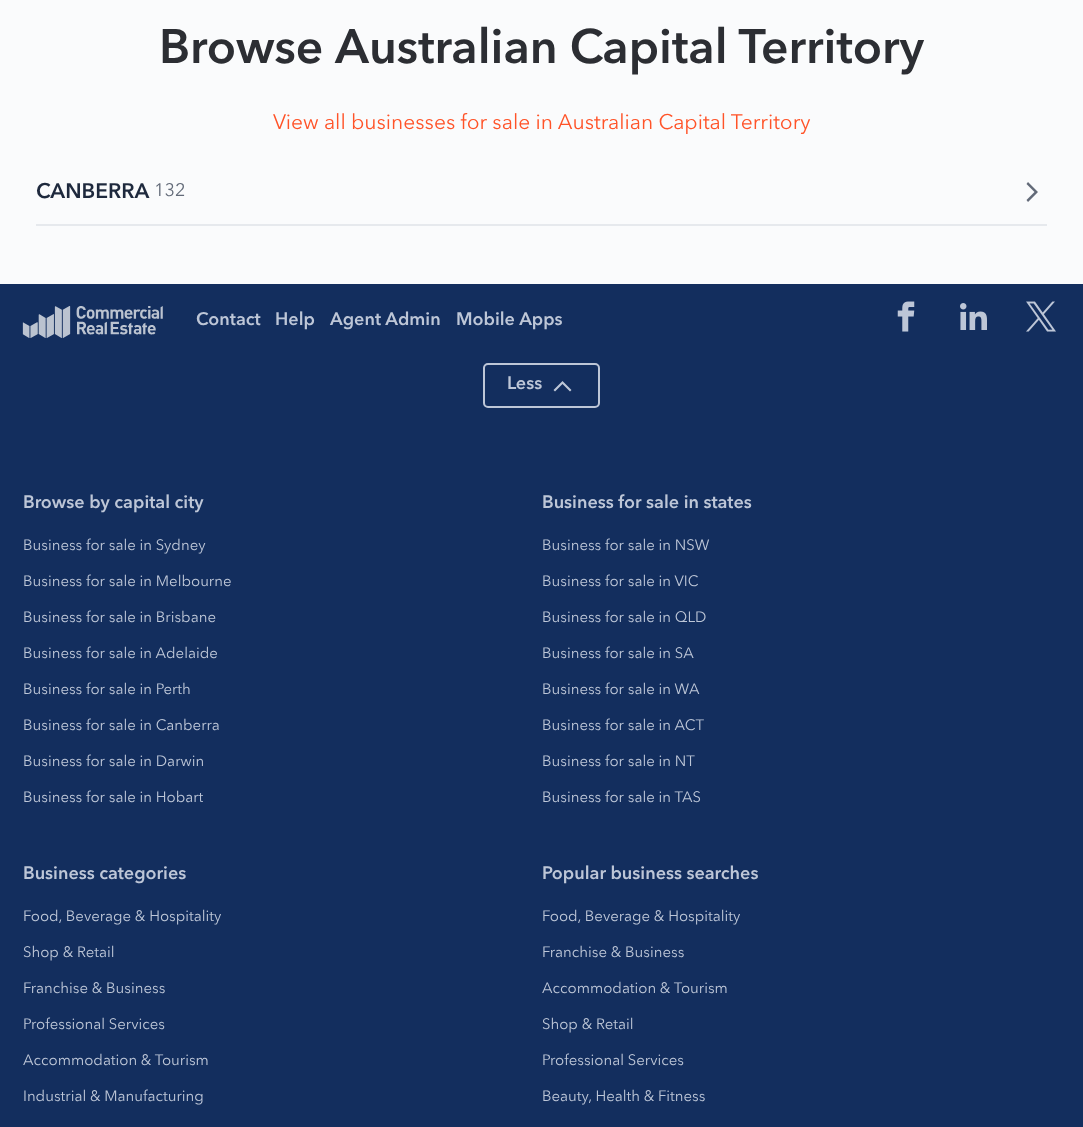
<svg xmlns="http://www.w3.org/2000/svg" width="1083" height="1127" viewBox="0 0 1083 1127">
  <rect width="100%" height="100%" fill="#fafbfc"/>
  <text x="159" y="63" font-family="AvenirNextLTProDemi" font-size="48" fill="#2c2e33">Browse</text>
  <text x="335" y="63" font-family="AvenirNextLTProDemi" font-size="48" fill="#2c2e33">Australian Capital Territory</text>
  <text x="273" y="129" font-family="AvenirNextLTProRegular" font-size="21" fill="#ff5328">View all businesses for sale in Australian Capital Territory</text>
  <rect x="36" y="224" width="1011" height="2" fill="#e6e9ed"/>
  <text x="36" y="198" font-family="AvenirNextLTProDemi" font-size="21" fill="#1e293d">CANBERRA</text>
  <text x="154" y="196" font-family="AvenirNextLTProRegular" font-size="18" fill="#626a78">132</text>
  <path d="M1028 202L1038 192L1028 182L1026.5 184L1034.5 192L1026.5 200Z" fill="#626a78"/>
  <rect x="0" y="284" width="1083" height="843" fill="#132e5e"/>
  <image x="22" y="306" width="141" height="32" href="img1.png"/>
  <text x="196" y="325" font-family="AvenirNextLTProDemi" font-size="18" fill="#bdc6d7">Contact</text>
  <text x="275" y="325" font-family="AvenirNextLTProDemi" font-size="18" fill="#bdc6d7">Help</text>
  <text x="330" y="325" font-family="AvenirNextLTProDemi" font-size="18" fill="#bdc6d7">Agent Admin</text>
  <text x="456" y="325" font-family="AvenirNextLTProDemi" font-size="18" fill="#bdc6d7">Mobile Apps</text>
  <image x="897" y="301" width="18" height="31" href="img2.png"/>
  <image x="960" y="303" width="27" height="27" href="img3.png"/>
  <image x="1026" y="301" width="30" height="31" href="img4.png"/>
  <rect x="484" y="364" width="115" height="43" rx="4" fill="none" stroke="#bdc6d7" stroke-width="2"/>
  <text x="507" y="389" font-family="AvenirNextLTProDemi" font-size="18" fill="#bdc6d7">Less</text>
  <path d="M553.5 390L562.5 381L571.5 390L570 391.5L562.5 384L555 391.5Z" fill="#bdc6d7"/>
  <text x="23" y="508" font-family="AvenirNextLTProDemi" font-size="18" fill="#bdc6d7">Browse by capital city</text>
  <text x="23" y="550" font-family="AvenirNextLTProRegular" font-size="15" fill="#bdc6d7">Business for sale in Sydney</text>
  <text x="23" y="586" font-family="AvenirNextLTProRegular" font-size="15" fill="#bdc6d7">Business for sale in Melbourne</text>
  <text x="23" y="622" font-family="AvenirNextLTProRegular" font-size="15" fill="#bdc6d7">Business for sale in Brisbane</text>
  <text x="23" y="658" font-family="AvenirNextLTProRegular" font-size="15" fill="#bdc6d7">Business for sale in Adelaide</text>
  <text x="23" y="694" font-family="AvenirNextLTProRegular" font-size="15" fill="#bdc6d7">Business for sale in Perth</text>
  <text x="23" y="730" font-family="AvenirNextLTProRegular" font-size="15" fill="#bdc6d7">Business for sale in Canberra</text>
  <text x="23" y="766" font-family="AvenirNextLTProRegular" font-size="15" fill="#bdc6d7">Business for sale in Darwin</text>
  <text x="23" y="802" font-family="AvenirNextLTProRegular" font-size="15" fill="#bdc6d7">Business for sale in Hobart</text>
  <text x="542" y="508" font-family="AvenirNextLTProDemi" font-size="18" fill="#bdc6d7">Business for sale in states</text>
  <text x="542" y="550" font-family="AvenirNextLTProRegular" font-size="15" fill="#bdc6d7">Business for sale in NSW</text>
  <text x="542" y="586" font-family="AvenirNextLTProRegular" font-size="15" fill="#bdc6d7">Business for sale in VIC</text>
  <text x="542" y="622" font-family="AvenirNextLTProRegular" font-size="15" fill="#bdc6d7">Business for sale in QLD</text>
  <text x="542" y="658" font-family="AvenirNextLTProRegular" font-size="15" fill="#bdc6d7">Business for sale in SA</text>
  <text x="542" y="694" font-family="AvenirNextLTProRegular" font-size="15" fill="#bdc6d7">Business for sale in WA</text>
  <text x="542" y="730" font-family="AvenirNextLTProRegular" font-size="15" fill="#bdc6d7">Business for sale in ACT</text>
  <text x="542" y="766" font-family="AvenirNextLTProRegular" font-size="15" fill="#bdc6d7">Business for sale in NT</text>
  <text x="542" y="802" font-family="AvenirNextLTProRegular" font-size="15" fill="#bdc6d7">Business for sale in TAS</text>
  <text x="23" y="879" font-family="AvenirNextLTProDemi" font-size="18" fill="#bdc6d7">Business categories</text>
  <text x="23" y="921" font-family="AvenirNextLTProRegular" font-size="15" fill="#bdc6d7">Food, Beverage &amp; Hospitality</text>
  <text x="23" y="957" font-family="AvenirNextLTProRegular" font-size="15" fill="#bdc6d7">Shop &amp; Retail</text>
  <text x="23" y="993" font-family="AvenirNextLTProRegular" font-size="15" fill="#bdc6d7">Franchise &amp; Business</text>
  <text x="23" y="1029" font-family="AvenirNextLTProRegular" font-size="15" fill="#bdc6d7">Professional Services</text>
  <text x="23" y="1065" font-family="AvenirNextLTProRegular" font-size="15" fill="#bdc6d7">Accommodation &amp; Tourism</text>
  <text x="23" y="1101" font-family="AvenirNextLTProRegular" font-size="15" fill="#bdc6d7">Industrial &amp; Manufacturing</text>
  <text x="542" y="879" font-family="AvenirNextLTProDemi" font-size="18" fill="#bdc6d7">Popular business searches</text>
  <text x="542" y="921" font-family="AvenirNextLTProRegular" font-size="15" fill="#bdc6d7">Food, Beverage &amp; Hospitality</text>
  <text x="542" y="957" font-family="AvenirNextLTProRegular" font-size="15" fill="#bdc6d7">Franchise &amp; Business</text>
  <text x="542" y="993" font-family="AvenirNextLTProRegular" font-size="15" fill="#bdc6d7">Accommodation &amp; Tourism</text>
  <text x="542" y="1029" font-family="AvenirNextLTProRegular" font-size="15" fill="#bdc6d7">Shop &amp; Retail</text>
  <text x="542" y="1065" font-family="AvenirNextLTProRegular" font-size="15" fill="#bdc6d7">Professional Services</text>
  <text x="542" y="1101" font-family="AvenirNextLTProRegular" font-size="15" fill="#bdc6d7">Beauty, Health &amp; Fitness</text>
</svg>
